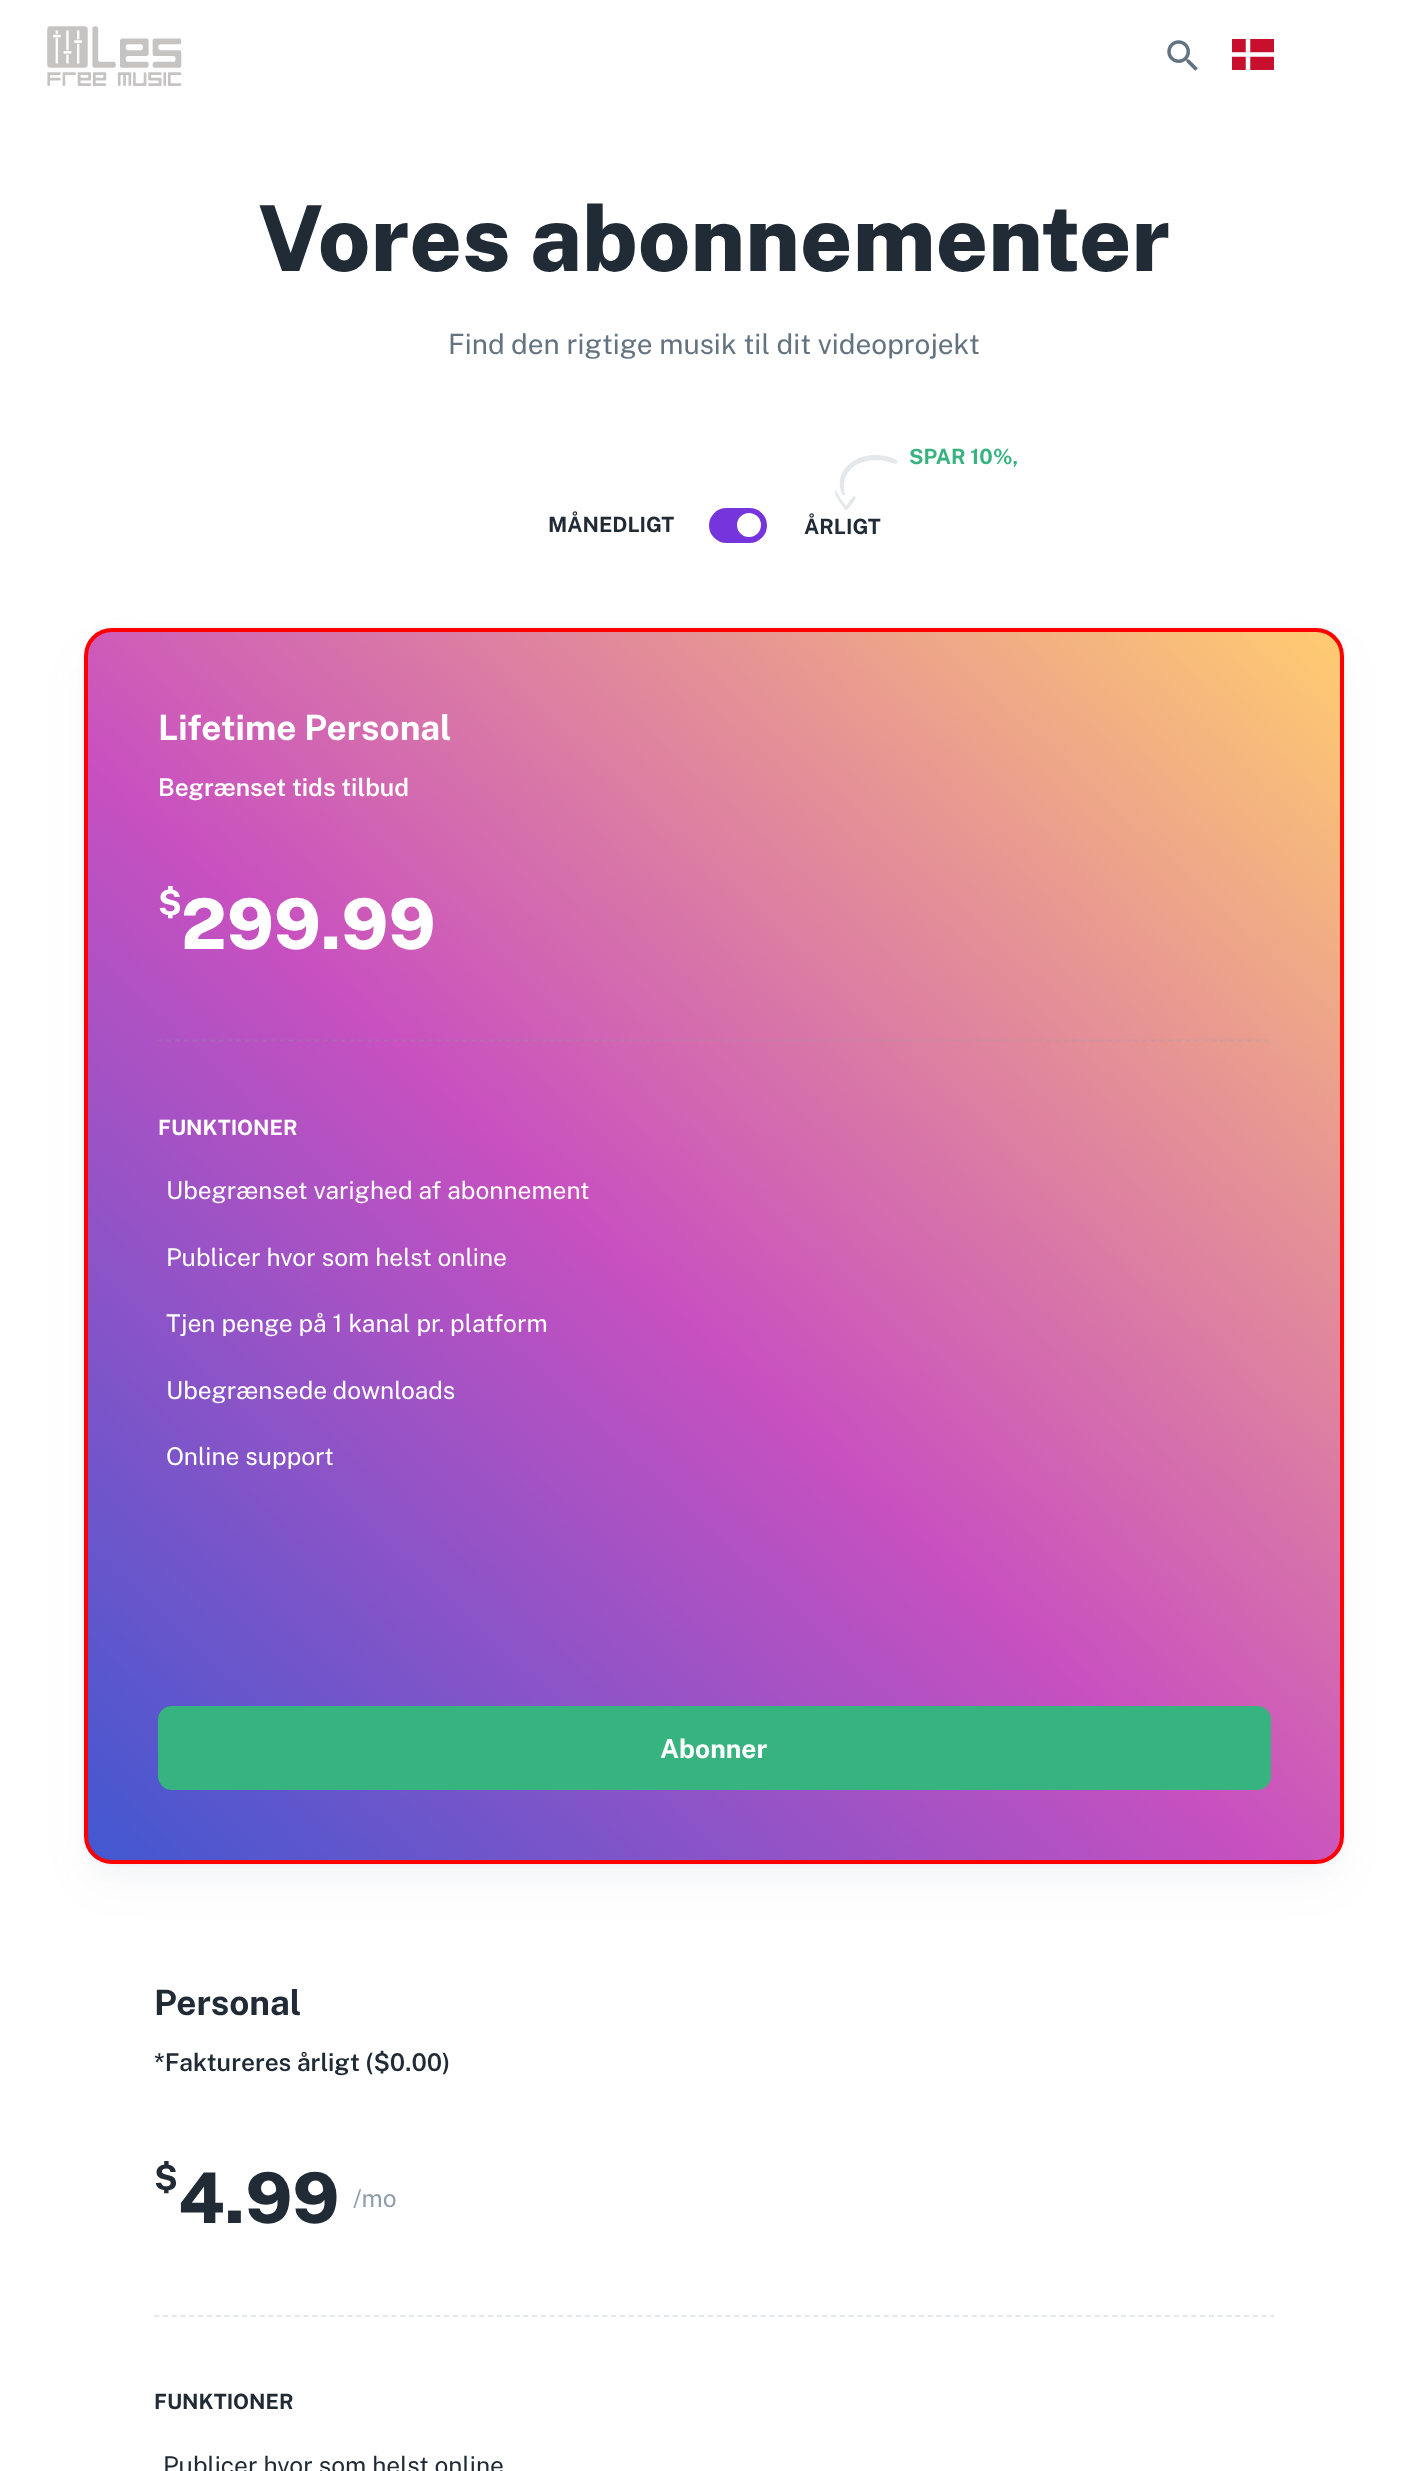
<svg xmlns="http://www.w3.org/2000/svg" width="1428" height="2471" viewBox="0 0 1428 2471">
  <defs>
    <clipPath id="clip1"><rect x="1232" y="39" width="42" height="31"/></clipPath>
    <filter id="blur1" x="-50%" y="-200%" width="200%" height="500%"><feGaussianBlur stdDeviation="21"/></filter>
    <filter id="blur2" x="-50%" y="-200%" width="200%" height="500%"><feGaussianBlur stdDeviation="2"/></filter>
    <clipPath id="clip2"><rect x="84" y="628" width="1260" height="1236" rx="28"/></clipPath>
    <linearGradient id="g1" gradientUnits="userSpaceOnUse" x1="116" y1="1887" x2="1312" y2="605"><stop offset="0" stop-color="#4158d0"/><stop offset="0.46" stop-color="#c850c0"/><stop offset="1" stop-color="#ffcc70"/></linearGradient>
  </defs>
  <rect width="100%" height="100%" fill="#ffffff"/>
  <image x="47" y="26" width="135" height="60" href="img1.png"/>
  <image x="1167" y="40" width="31" height="31" href="img2.png"/>
  <rect x="1232" y="39" width="42" height="31" fill="#c8102e"/>
  <g clip-path="url(#clip1)">
    <path d="M1232 54.5H1274M1248 38.5V70.5" fill="none" stroke="#ffffff" stroke-width="4.5"/>
  </g>
  <text x="258" y="271" font-family="Public Sans" font-size="91" font-weight="800" fill="#212b36">Vores abonnementer</text>
  <text x="448" y="354" font-family="Public Sans" font-size="28" fill="#637381">Find den rigtige musik til dit videoprojekt</text>
  <text x="548" y="532" font-family="Public Sans" font-size="21" font-weight="bold" fill="#212b36">MÅNEDLIGT</text>
  <rect x="709" y="508" width="58" height="35" rx="17.5" fill="#7635dc"/>
  <circle cx="749" cy="525" r="12" fill="#ffffff"/>
  <image x="834" y="455" width="64" height="55" href="img3.png"/>
  <text x="909" y="464" font-family="Public Sans" font-size="21" font-weight="bold" fill="#36b37e">SPAR 10%,</text>
  <text x="804" y="534" font-family="Public Sans" font-size="21" font-weight="bold" fill="#212b36">ÅRLIGT</text>
  <rect x="91" y="656" width="1246" height="1222" rx="21" fill="#919eab" fill-opacity="0.12" filter="url(#blur1)"/>
  <rect x="84" y="628" width="1260" height="1236" rx="28" fill="#919eab" fill-opacity="0.2" filter="url(#blur2)"/>
  <g clip-path="url(#clip2)">
    <rect x="88" y="632" width="1253" height="1228" fill="url(#g1)"/>
  </g>
  <rect x="86" y="630" width="1256" height="1232" rx="26" fill="none" stroke="#ff0000" stroke-width="4"/>
  <text x="158" y="740" font-family="Public Sans" font-size="35" font-weight="bold" fill="#ffffff">Lifetime Personal</text>
  <text x="158" y="796" font-family="Public Sans" font-size="24.5" font-weight="600" fill="#ffffff">Begrænset tids tilbud</text>
  <text x="158" y="915" font-family="Public Sans" font-size="35" font-weight="bold" fill="#ffffff">$</text>
  <text x="181" y="949" font-family="Public Sans" font-size="70" font-weight="800" fill="#ffffff">299.99</text>
  <path d="M157.5 1040.5H1270.5" fill="none" stroke="#919eab" stroke-opacity="0.24" stroke-width="1.8" stroke-dasharray="5.25 3.46"/>
  <text x="158" y="1135" font-family="Public Sans" font-size="21" font-weight="bold" fill="#ffffff">FUNKTIONER</text>
  <text x="166" y="1199" font-family="Public Sans" font-size="24.5" fill="#ffffff">Ubegrænset varighed af abonnement</text>
  <text x="166" y="1266" font-family="Public Sans" font-size="24.5" fill="#ffffff">Publicer hvor som helst online</text>
  <text x="166" y="1332" font-family="Public Sans" font-size="24.5" fill="#ffffff">Tjen penge på 1 kanal pr. platform</text>
  <text x="166" y="1399" font-family="Public Sans" font-size="24.5" fill="#ffffff">Ubegrænsede downloads</text>
  <text x="166" y="1465" font-family="Public Sans" font-size="24.5" fill="#ffffff">Online support</text>
  <rect x="158" y="1706" width="1113" height="84" rx="14" fill="#36b37e"/>
  <text x="660" y="1758" font-family="Public Sans" font-size="26.25" font-weight="bold" fill="#ffffff">Abonner</text>
  <text x="154" y="2015" font-family="Public Sans" font-size="35" font-weight="bold" fill="#212b36">Personal</text>
  <text x="154" y="2071" font-family="Public Sans" font-size="24.5" font-weight="600" fill="#212b36">*Faktureres årligt ($0.00)</text>
  <text x="154" y="2190" font-family="Public Sans" font-size="35" font-weight="bold" fill="#212b36">$</text>
  <text x="178" y="2223" font-family="Public Sans" font-size="70" font-weight="800" fill="#212b36">4.99</text>
  <text x="353" y="2207" font-family="Public Sans" font-size="24.5" fill="#919eab">/mo</text>
  <path d="M154 2316H1274" fill="none" stroke="#e5e8eb" stroke-width="1.8" stroke-dasharray="5.25 3.54"/>
  <text x="154" y="2409" font-family="Public Sans" font-size="21" font-weight="bold" fill="#212b36">FUNKTIONER</text>
  <text x="163" y="2474" font-family="Public Sans" font-size="24.5" fill="#212b36">Publicer hvor som helst online</text>
</svg>
